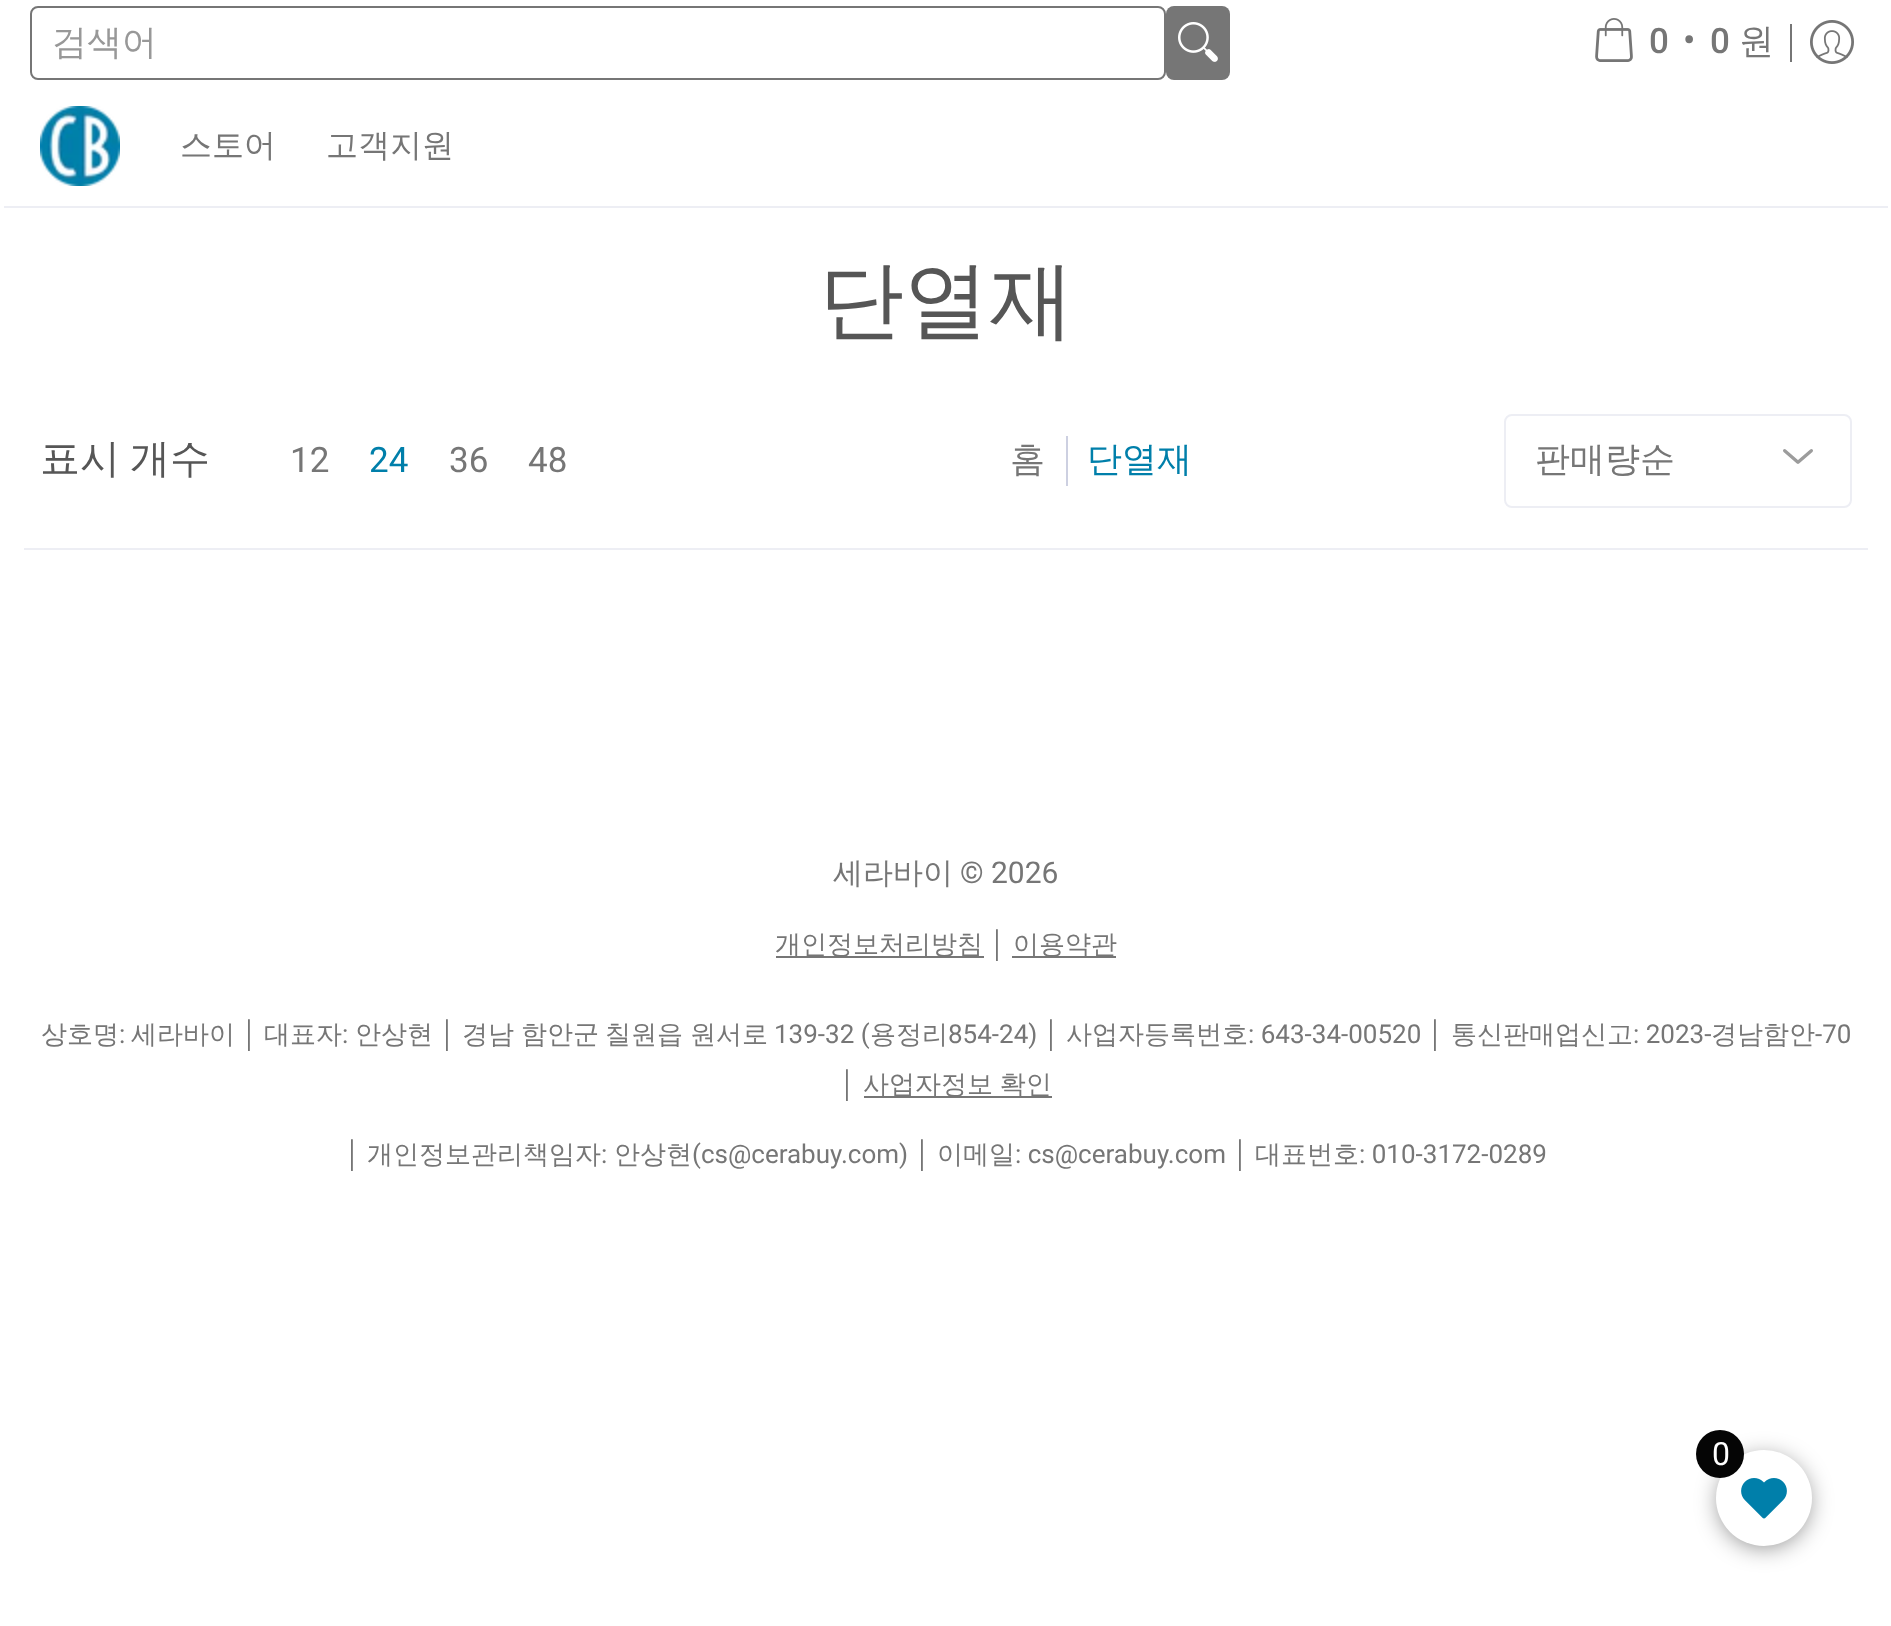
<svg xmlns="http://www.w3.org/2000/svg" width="1891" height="1626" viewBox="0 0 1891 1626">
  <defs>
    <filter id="blur1" x="-50%" y="-200%" width="200%" height="500%"><feGaussianBlur stdDeviation="12"/></filter>
  </defs>
  <rect width="100%" height="100%" fill="#ffffff"/>
  <rect x="31" y="7" width="1134" height="72" rx="7" fill="none" stroke="#767676" stroke-width="2"/>
  <text x="52" y="54" font-family="WenQuanYi Zen Hei" font-size="35" font-weight="500" fill="#989898">검색어</text>
  <rect x="1166" y="6" width="64" height="74" rx="8" fill="#767676"/>
  <image x="1178" y="22" width="40" height="40" href="img1.png"/>
  <image x="1595" y="18" width="38" height="44" href="img2.png"/>
  <text x="1649" y="53" font-family="Roboto" font-size="35" font-weight="500" fill="#767676">0</text>
  <text x="1683" y="52" font-family="Roboto" font-size="35" font-weight="500" fill="#767676">•</text>
  <text x="1710" y="53" font-family="Roboto" font-size="35" font-weight="500" fill="#767676">0</text>
  <text x="1739" y="53" font-family="WenQuanYi Zen Hei" font-size="35" font-weight="500" fill="#767676">원</text>
  <rect x="1790" y="24" width="2" height="38" fill="#767676"/>
  <image x="1810" y="20" width="44" height="44" href="img3.png"/>
  <rect x="4" y="206" width="1884" height="2" fill="#edeef4"/>
  <image x="40" y="106" width="80" height="80" href="img4.png"/>
  <text x="180" y="156" font-family="WenQuanYi Zen Hei" font-size="32" font-weight="500" fill="#767676">스토어</text>
  <text x="326" y="156" font-family="WenQuanYi Zen Hei" font-size="32" font-weight="500" fill="#767676">고객지원</text>
  <text x="819" y="329" font-family="WenQuanYi Zen Hei" font-size="85" font-weight="500" fill="#565656">단열재</text>
  <rect x="24" y="548" width="1844" height="2" fill="#edeef4"/>
  <text x="40" y="472" word-spacing="-2" font-family="WenQuanYi Zen Hei" font-size="40" font-weight="500" fill="#565656">표시 개수</text>
  <text x="290" y="472" font-family="Roboto" font-size="35" fill="#767676">12</text>
  <text x="369" y="472" font-family="Roboto" font-size="35" fill="#007faa">24</text>
  <text x="449" y="472" font-family="Roboto" font-size="35" fill="#767676">36</text>
  <text x="528" y="472" font-family="Roboto" font-size="35" fill="#767676">48</text>
  <text x="1010" y="471" font-family="WenQuanYi Zen Hei" font-size="35" font-weight="500" fill="#767676">홈</text>
  <rect x="1066" y="436" width="2" height="50" fill="#cdd0e1"/>
  <text x="1087" y="471" font-family="WenQuanYi Zen Hei" font-size="35" font-weight="500" fill="#007faa">단열재</text>
  <image x="1783" y="449" width="30" height="15" href="img5.png"/>
  <rect x="1505" y="415" width="346" height="92" rx="7" fill="none" stroke="#edeef4" stroke-width="2"/>
  <text x="1535" y="471" font-family="WenQuanYi Zen Hei" font-size="35" font-weight="500" fill="#767676">판매량순</text>
  <text x="833" y="883" font-family="WenQuanYi Zen Hei" font-size="30" font-weight="500" fill="#767676">세라바이</text>
  <text x="960" y="883" font-family="Roboto" font-size="30" fill="#767676">© 2026</text>
  <rect x="776" y="956" width="208" height="2" fill="#767676"/>
  <text x="775" y="953" font-family="WenQuanYi Zen Hei" font-size="26" font-weight="500" fill="#767676">개인정보처리방침</text>
  <text x="990" y="953" font-family="Liberation Sans" font-size="26" fill="#767676">│</text>
  <rect x="1012" y="956" width="104" height="2" fill="#767676"/>
  <text x="1013" y="953" font-family="WenQuanYi Zen Hei" font-size="26" font-weight="500" fill="#767676">이용약관</text>
  <text x="41" y="1043" font-family="WenQuanYi Zen Hei" font-size="26" font-weight="500" fill="#767676">상호명</text>
  <text x="119" y="1043" font-family="Roboto" font-size="26" fill="#767676">:</text>
  <text x="131" y="1043" font-family="WenQuanYi Zen Hei" font-size="26" font-weight="500" fill="#767676">세라바이</text>
  <text x="242" y="1043" font-family="Liberation Sans" font-size="26" fill="#767676">│</text>
  <text x="264" y="1043" font-family="WenQuanYi Zen Hei" font-size="26" font-weight="500" fill="#767676">대표자</text>
  <text x="342" y="1043" font-family="Roboto" font-size="26" fill="#767676">:</text>
  <text x="355" y="1043" font-family="WenQuanYi Zen Hei" font-size="26" font-weight="500" fill="#767676">안상현</text>
  <text x="440" y="1043" font-family="Liberation Sans" font-size="26" fill="#767676">│</text>
  <text x="462" y="1043" font-family="WenQuanYi Zen Hei" font-size="26" font-weight="500" fill="#767676">경남</text>
  <text x="521" y="1043" font-family="WenQuanYi Zen Hei" font-size="26" font-weight="500" fill="#767676">함안군</text>
  <text x="605" y="1043" font-family="WenQuanYi Zen Hei" font-size="26" font-weight="500" fill="#767676">칠원읍</text>
  <text x="690" y="1043" font-family="WenQuanYi Zen Hei" font-size="26" font-weight="500" fill="#767676">원서로</text>
  <text x="774" y="1043" font-family="Roboto" font-size="26" fill="#767676">139-32 (</text>
  <text x="870" y="1043" font-family="WenQuanYi Zen Hei" font-size="26" font-weight="500" fill="#767676">용정리</text>
  <text x="948" y="1043" font-family="Roboto" font-size="26" fill="#767676">854-24)</text>
  <text x="1044" y="1043" font-family="Liberation Sans" font-size="26" fill="#767676">│</text>
  <text x="1066" y="1043" font-family="WenQuanYi Zen Hei" font-size="26" font-weight="500" fill="#767676">사업자등록번호</text>
  <text x="1248" y="1043" font-family="Roboto" font-size="26" fill="#767676">: 643-34-00520</text>
  <text x="1428" y="1043" font-family="Liberation Sans" font-size="26" fill="#767676">│</text>
  <text x="1451" y="1043" font-family="WenQuanYi Zen Hei" font-size="26" font-weight="500" fill="#767676">통신판매업신고</text>
  <text x="1633" y="1043" font-family="Roboto" font-size="26" fill="#767676">: 2023-</text>
  <text x="1711" y="1043" font-family="WenQuanYi Zen Hei" font-size="26" font-weight="500" fill="#767676">경남함안</text>
  <text x="1815" y="1043" font-family="Roboto" font-size="26" fill="#767676">-70</text>
  <text x="840" y="1093" font-family="Liberation Sans" font-size="26" fill="#767676">│</text>
  <rect x="864" y="1096" width="188" height="2" fill="#767676"/>
  <text x="863" y="1093" word-spacing="-1" font-family="WenQuanYi Zen Hei" font-size="26" font-weight="500" fill="#767676">사업자정보 확인</text>
  <text x="345" y="1163" font-family="Liberation Sans" font-size="26" fill="#767676">│</text>
  <text x="367" y="1163" font-family="WenQuanYi Zen Hei" font-size="26" font-weight="500" fill="#767676">개인정보관리책임자</text>
  <text x="601" y="1163" font-family="Roboto" font-size="26" fill="#767676">:</text>
  <text x="614" y="1163" font-family="WenQuanYi Zen Hei" font-size="26" font-weight="500" fill="#767676">안상현</text>
  <text x="692" y="1163" font-family="Roboto" font-size="26" fill="#767676">(cs@cerabuy.com)</text>
  <text x="915" y="1163" font-family="Liberation Sans" font-size="26" fill="#767676">│</text>
  <text x="937" y="1163" font-family="WenQuanYi Zen Hei" font-size="26" font-weight="500" fill="#767676">이메일</text>
  <text x="1015" y="1163" font-family="Roboto" font-size="26" fill="#767676">: cs@cerabuy.com</text>
  <text x="1233" y="1163" font-family="Liberation Sans" font-size="26" fill="#767676">│</text>
  <text x="1255" y="1163" font-family="WenQuanYi Zen Hei" font-size="26" font-weight="500" fill="#767676">대표번호</text>
  <text x="1359" y="1163" font-family="Roboto" font-size="26" fill="#767676">: 010-3172-0289</text>
  <rect x="1720" y="1458" width="88" height="88" rx="44" fill="#000000" fill-opacity="0.5" filter="url(#blur1)"/>
  <circle cx="1764" cy="1498" r="48" fill="#ffffff"/>
  <circle cx="1720" cy="1454" r="24" fill="#050505"/>
  <text x="1712" y="1465" font-family="Roboto" font-size="32" fill="#ffffff">0</text>
  <image x="1741" y="1478" width="46" height="41" href="img6.png"/>
</svg>
